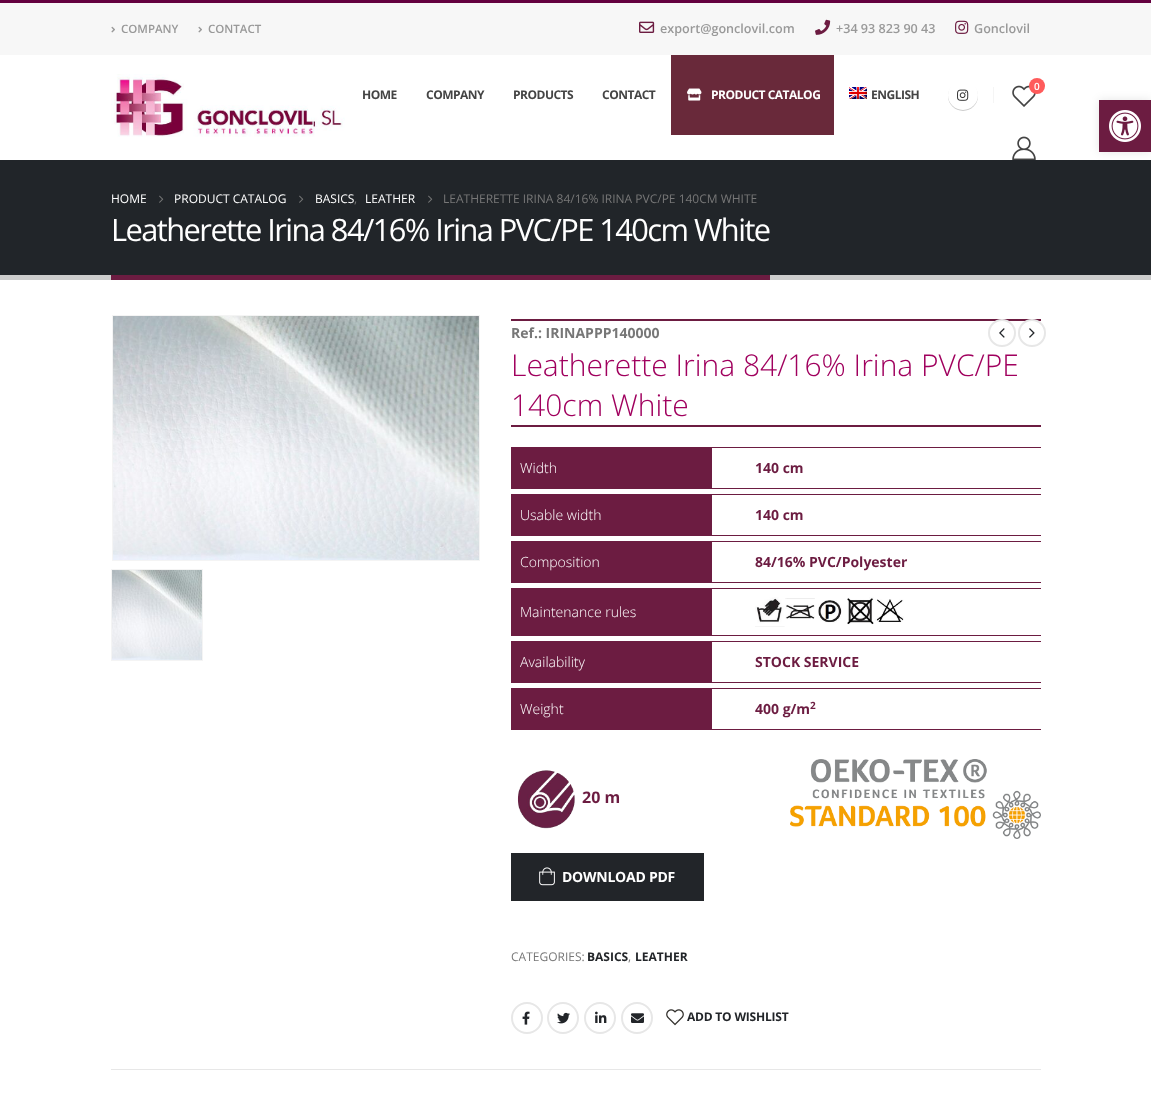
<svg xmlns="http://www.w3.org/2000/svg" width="1151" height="1107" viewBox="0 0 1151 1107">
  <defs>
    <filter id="blur1" x="-50%" y="-200%" width="200%" height="500%"><feGaussianBlur stdDeviation="0.5"/></filter>
    <filter id="blur2" x="-50%" y="-200%" width="200%" height="500%"><feGaussianBlur stdDeviation="5"/></filter>
  </defs>
  <rect width="100%" height="100%" fill="#ffffff"/>
  <rect x="0" y="0" width="1151" height="3" fill="#64003f"/>
  <rect x="0" y="3" width="1151" height="52" fill="#f7f7f7"/>
  <image x="111" y="26" width="4" height="7" href="img1.png"/>
  <text x="121" y="33" font-family="Open Sans" font-size="11.5" font-weight="600" fill="#999999">COMPANY</text>
  <image x="198" y="26" width="4" height="7" href="img1.png"/>
  <text x="208" y="33" font-family="Open Sans" font-size="11.5" font-weight="600" fill="#999999">CONTACT</text>
  <image x="639" y="21" width="16" height="12" href="img2.png"/>
  <text x="660" y="33" font-family="Open Sans" font-size="12.6" font-weight="600" fill="#999999">export@gonclovil.com</text>
  <image x="815" y="19" width="16" height="16" href="img3.png"/>
  <text x="836" y="33" font-family="Open Sans" font-size="12.6" font-weight="600" fill="#999999">+34 93 823 90 43</text>
  <image x="955" y="20" width="14" height="14" href="img4.png"/>
  <text x="974" y="33" font-family="Open Sans" font-size="12.6" font-weight="600" fill="#999999">Gonclovil</text>
  <image x="111" y="74" width="234" height="63" href="img5.png"/>
  <text x="362" y="99" font-family="Open Sans" font-size="12" font-weight="bold" letter-spacing="-0.5" fill="#444444">HOME</text>
  <text x="426" y="99" font-family="Open Sans" font-size="12" font-weight="bold" letter-spacing="-0.5" fill="#444444">COMPANY</text>
  <text x="513" y="99" font-family="Open Sans" font-size="12" font-weight="bold" letter-spacing="-0.5" fill="#444444">PRODUCTS</text>
  <text x="602" y="99" font-family="Open Sans" font-size="12" font-weight="bold" letter-spacing="-0.5" fill="#444444">CONTACT</text>
  <rect x="671" y="55" width="163" height="80" fill="#69293a"/>
  <image x="687" y="88" width="15" height="13" href="img6.png"/>
  <text x="711" y="99" font-family="Open Sans" font-size="12" font-weight="bold" letter-spacing="-0.5" fill="#ffffff">PRODUCT CATALOG</text>
  <image x="849" y="87" width="18" height="12" href="img7.png"/>
  <text x="871" y="99" font-family="Open Sans" font-size="12" font-weight="bold" letter-spacing="-0.5" fill="#444444">ENGLISH</text>
  <rect x="948" y="81" width="30" height="30" rx="15" fill="#000000" fill-opacity="0.2" filter="url(#blur1)"/>
  <circle cx="963" cy="95" r="15" fill="#ffffff"/>
  <image x="957" y="89" width="12" height="12" href="img8.png"/>
  <rect x="993" y="87" width="1" height="16" fill="#f5f5f5"/>
  <image x="1012" y="85" width="24" height="22" href="img9.png"/>
  <circle cx="1037" cy="86" r="8" fill="#ff5b5b"/>
  <text x="1034" y="90" font-family="Open Sans" font-size="10" font-weight="600" fill="#ffffff">0</text>
  <image x="1012" y="136" width="24" height="24" href="img10.png"/>
  <rect x="0" y="160" width="1151" height="115" fill="#212529"/>
  <rect x="0" y="275" width="1151" height="5" fill="#cccccc"/>
  <text x="111" y="203" font-family="Open Sans" font-size="12" fill="#ffffff">HOME</text>
  <image x="159" y="195" width="5" height="8" href="img11.png"/>
  <text x="174" y="203" font-family="Open Sans" font-size="12" fill="#ffffff">PRODUCT CATALOG</text>
  <image x="299" y="195" width="5" height="8" href="img11.png"/>
  <text x="315" y="203" font-family="Open Sans" font-size="12" fill="#ffffff">BASICS</text>
  <text x="354" y="203" font-family="Open Sans" font-size="12" fill="#777777">,</text>
  <text x="365" y="203" font-family="Open Sans" font-size="12" fill="#ffffff">LEATHER</text>
  <image x="428" y="195" width="5" height="8" href="img11.png"/>
  <text x="443" y="203" font-family="Open Sans" font-size="12" fill="#777777">LEATHERETTE IRINA 84/16% IRINA PVC/PE 140CM WHITE</text>
  <text x="111" y="241" font-family="Open Sans" font-size="30.8" letter-spacing="-1.55" fill="#ffffff">Leatherette Irina 84/16% Irina PVC/PE 140cm White</text>
  <rect x="111" y="275" width="659" height="5" fill="#6c1c41"/>
  <rect x="112.5" y="315.5" width="367" height="245" fill="none" stroke="#f4f4f4"/>
  <image x="113" y="316" width="366" height="244" href="img12.png"/>
  <rect x="111.5" y="569.5" width="91" height="91" fill="none" stroke="#f4f4f4"/>
  <image x="112" y="570" width="90" height="90" href="img13.png"/>
  <rect x="511" y="319" width="530" height="2" fill="#6c1c41"/>
  <circle cx="1002" cy="333" r="13" fill="none" stroke="#e7e7e7" stroke-width="2"/>
  <image x="999" y="328" width="6" height="10" href="img14.png"/>
  <circle cx="1032" cy="333" r="13" fill="none" stroke="#e7e7e7" stroke-width="2"/>
  <image x="1029" y="328" width="6" height="10" href="img15.png"/>
  <rect x="511" y="425" width="530" height="2" fill="#6c1c41"/>
  <text x="511" y="338" font-family="Open Sans" font-size="14" font-weight="bold" fill="#777777">Ref.: IRINAPPP140000</text>
  <text x="511" y="376" font-family="Open Sans" font-size="30" font-weight="300" fill="#a0005e">Leatherette Irina 84/16% Irina PVC/PE</text>
  <text x="511" y="416" font-family="Open Sans" font-size="30" font-weight="300" fill="#a0005e">140cm White</text>
  <rect x="511" y="447" width="201" height="42" fill="#6c1c41"/>
  <text x="520" y="473" font-family="Open Sans" font-size="14" font-weight="300" fill="#ffffff">Width</text>
  <rect x="712" y="447" width="329" height="1" fill="#6c1c41"/>
  <rect x="712" y="488" width="329" height="1" fill="#6c1c41"/>
  <text x="755" y="473" font-family="Open Sans" font-size="14" font-weight="bold" fill="#6c1c41">140 cm</text>
  <rect x="511" y="494" width="201" height="42" fill="#6c1c41"/>
  <text x="520" y="520" font-family="Open Sans" font-size="14" font-weight="300" fill="#ffffff">Usable width</text>
  <rect x="712" y="494" width="329" height="1" fill="#6c1c41"/>
  <rect x="712" y="535" width="329" height="1" fill="#6c1c41"/>
  <text x="755" y="520" font-family="Open Sans" font-size="14" font-weight="bold" fill="#6c1c41">140 cm</text>
  <rect x="511" y="541" width="201" height="42" fill="#6c1c41"/>
  <text x="520" y="567" font-family="Open Sans" font-size="14" font-weight="300" fill="#ffffff">Composition</text>
  <rect x="712" y="541" width="329" height="1" fill="#6c1c41"/>
  <rect x="712" y="582" width="329" height="1" fill="#6c1c41"/>
  <text x="755" y="567" font-family="Open Sans" font-size="14" font-weight="bold" fill="#6c1c41">84/16% PVC/Polyester</text>
  <rect x="511" y="588" width="201" height="48" fill="#6c1c41"/>
  <text x="520" y="617" font-family="Open Sans" font-size="14" font-weight="300" fill="#ffffff">Maintenance rules</text>
  <rect x="712" y="588" width="329" height="1" fill="#6c1c41"/>
  <rect x="712" y="635" width="329" height="1" fill="#6c1c41"/>
  <image x="755" y="597" width="30" height="30" href="img16.png"/>
  <image x="785" y="598" width="30" height="21" href="img17.png"/>
  <image x="818" y="600" width="24" height="23" href="img18.png"/>
  <image x="847" y="597" width="27" height="28" href="img19.png"/>
  <image x="875" y="599" width="29" height="24" href="img20.png"/>
  <rect x="511" y="641" width="201" height="42" fill="#6c1c41"/>
  <text x="520" y="667" font-family="Open Sans" font-size="14" font-weight="300" fill="#ffffff">Availability</text>
  <rect x="712" y="641" width="329" height="1" fill="#6c1c41"/>
  <rect x="712" y="682" width="329" height="1" fill="#6c1c41"/>
  <text x="755" y="667" font-family="Open Sans" font-size="14" font-weight="bold" fill="#6c1c41">STOCK SERVICE</text>
  <rect x="511" y="688" width="201" height="42" fill="#6c1c41"/>
  <text x="520" y="714" font-family="Open Sans" font-size="14" font-weight="300" fill="#ffffff">Weight</text>
  <rect x="712" y="688" width="329" height="1" fill="#6c1c41"/>
  <rect x="712" y="729" width="329" height="1" fill="#6c1c41"/>
  <text x="755" y="714" font-family="Open Sans" font-size="14" font-weight="bold" fill="#6c1c41">400 g/m</text>
  <text x="810" y="709" font-family="Open Sans" font-size="10" font-weight="bold" fill="#6c1c41">2</text>
  <image x="517" y="770" width="58" height="59" href="img21.png"/>
  <text x="582" y="803" font-family="Open Sans" font-size="16" font-weight="bold" fill="#6c1c41">20 m</text>
  <image x="790" y="759" width="251" height="80" href="img22.png"/>
  <rect x="511" y="853" width="193" height="48" fill="#222529"/>
  <image x="539" y="867" width="16" height="19" href="img23.png"/>
  <text x="562" y="882" font-family="Open Sans" font-size="14" font-weight="bold" letter-spacing="-0.25" fill="#ffffff">DOWNLOAD PDF</text>
  <text x="511" y="961" font-family="Open Sans" font-size="12" fill="#777777">CATEGORIES:</text>
  <text x="587" y="961" font-family="Open Sans" font-size="12" font-weight="bold" fill="#222529">BASICS</text>
  <text x="628" y="961" font-family="Open Sans" font-size="12" fill="#777777">,</text>
  <text x="635" y="961" font-family="Open Sans" font-size="12" font-weight="bold" fill="#222529">LEATHER</text>
  <circle cx="527" cy="1018" r="15" fill="none" stroke="#e7e7e7" stroke-width="2"/>
  <image x="522" y="1011" width="8" height="14" href="img24.png"/>
  <circle cx="563" cy="1018" r="15" fill="none" stroke="#e7e7e7" stroke-width="2"/>
  <image x="557" y="1012" width="13" height="12" href="img25.png"/>
  <circle cx="600" cy="1018" r="15" fill="none" stroke="#e7e7e7" stroke-width="2"/>
  <image x="595" y="1011" width="12" height="12" href="img26.png"/>
  <circle cx="637" cy="1018" r="15" fill="none" stroke="#e7e7e7" stroke-width="2"/>
  <image x="631" y="1013" width="13" height="10" href="img27.png"/>
  <image x="666" y="1009" width="18" height="17" href="img28.png"/>
  <text x="687" y="1021" font-family="Open Sans" font-size="12" font-weight="bold" letter-spacing="-0.2" fill="#222529">ADD TO WISHLIST</text>
  <rect x="111" y="1069" width="930" height="1" fill="#e7e7e7"/>
  <rect x="1099" y="100" width="52" height="52" fill="#000000" fill-opacity="0.1" filter="url(#blur2)"/>
  <rect x="1099" y="100" width="52" height="52" fill="#6c1c41"/>
  <image x="1109" y="110" width="32" height="32" href="img29.png"/>
</svg>
